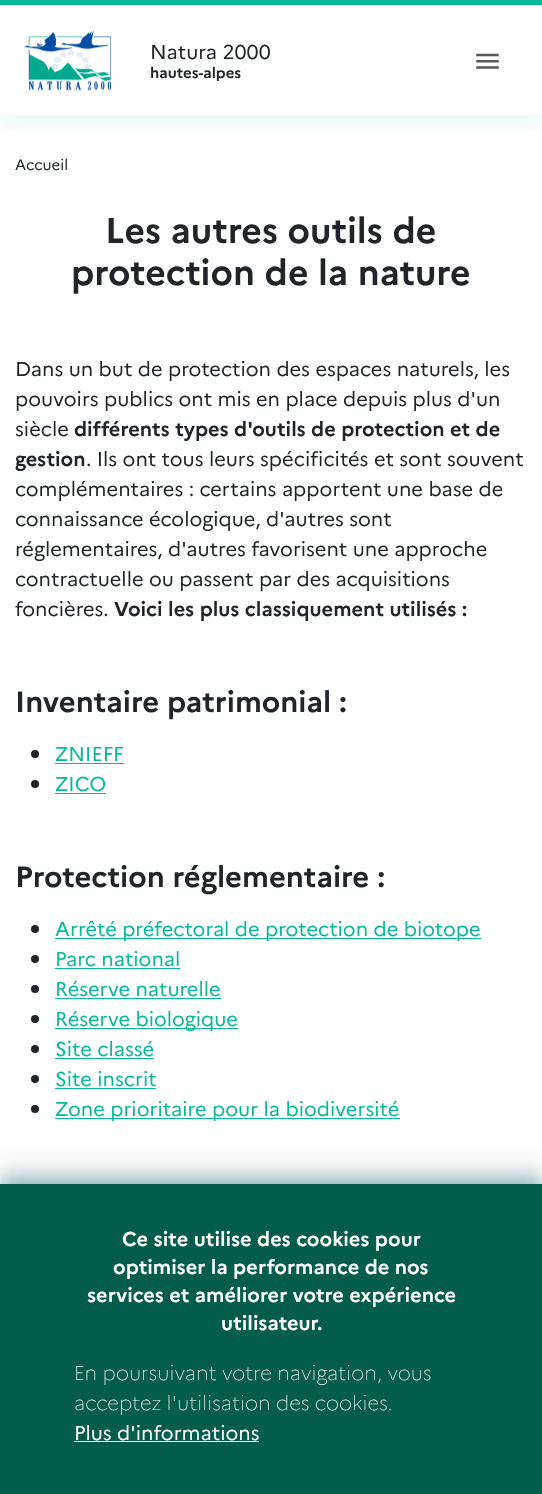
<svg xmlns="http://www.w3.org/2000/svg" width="542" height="1494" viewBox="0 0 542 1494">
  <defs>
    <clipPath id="clip1"><rect x="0" y="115" width="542" height="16"/></clipPath>
    <filter id="blur1" x="-50%" y="-200%" width="200%" height="500%"><feGaussianBlur stdDeviation="12.5"/></filter>
    <clipPath id="clip2"><rect x="150" y="39" width="283" height="42"/></clipPath>
    <filter id="blur2" x="-50%" y="-200%" width="200%" height="500%"><feGaussianBlur stdDeviation="9"/></filter>
  </defs>
  <rect width="100%" height="100%" fill="#ffffff"/>
  <g clip-path="url(#clip1)">
    <rect x="0" y="5" width="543" height="115" fill="#07b899" fill-opacity="0.1" filter="url(#blur1)"/>
  </g>
  <rect x="0" y="0" width="542" height="5" fill="#07b899"/>
  <image x="24" y="30" width="88" height="61" href="img1.png"/>
  <text x="150" y="59" font-family="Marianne" font-size="20" fill="#212529">Natura 2000</text>
  <g clip-path="url(#clip2)">
    <text x="150" y="78" font-family="Marianne" font-size="15" font-weight="bold" fill="#212529">hautes-alpes</text>
  </g>
  <image x="476" y="53" width="23" height="16" href="img2.png"/>
  <text x="15" y="170" font-family="Marianne" font-size="15" fill="#212529">Accueil</text>
  <text x="105" y="243" font-family="Marianne" font-size="35.6" font-weight="bold" fill="#212529">Les autres outils de</text>
  <text x="71" y="285" font-family="Marianne" font-size="35.6" font-weight="bold" fill="#212529">protection de la nature</text>
  <text x="15" y="376" font-family="Marianne" font-size="20" fill="#212529">Dans un but de protection des espaces naturels, les</text>
  <text x="15" y="406" font-family="Marianne" font-size="20" fill="#212529">pouvoirs publics ont mis en place depuis plus d'un</text>
  <text x="15" y="436" font-family="Marianne" font-size="20" fill="#212529">siècle</text>
  <text x="74" y="436" font-family="Marianne" font-size="20" font-weight="bold" fill="#212529">différents types d'outils de protection et de</text>
  <text x="15" y="466" font-family="Marianne" font-size="20" font-weight="bold" fill="#212529">gestion</text>
  <text x="86" y="466" font-family="Marianne" font-size="20" fill="#212529">. Ils ont tous leurs spécificités et sont souvent</text>
  <text x="15" y="496" font-family="Marianne" font-size="20" fill="#212529">complémentaires : certains apportent une base de</text>
  <text x="15" y="526" font-family="Marianne" font-size="20" fill="#212529">connaissance écologique, d'autres sont</text>
  <text x="15" y="556" font-family="Marianne" font-size="20" fill="#212529">réglementaires, d'autres favorisent une approche</text>
  <text x="15" y="586" font-family="Marianne" font-size="20" fill="#212529">contractuelle ou passent par des acquisitions</text>
  <text x="15" y="616" font-family="Marianne" font-size="20" fill="#212529">foncières.</text>
  <text x="114" y="616" font-family="Marianne" font-size="20" font-weight="bold" fill="#212529">Voici les plus classiquement utilisés :</text>
  <text x="15" y="712" font-family="Marianne" font-size="29.25" font-weight="bold" fill="#212529">Inventaire patrimonial :</text>
  <circle cx="35" cy="754" r="4" fill="#212529"/>
  <text x="55" y="761" font-family="Marianne" font-size="20" fill="#07b899">ZNIEFF</text>
  <rect x="55" y="763" width="69" height="1" fill="#07b899"/>
  <circle cx="35" cy="784" r="4" fill="#212529"/>
  <text x="55" y="791" font-family="Marianne" font-size="20" fill="#07b899">ZICO</text>
  <rect x="55" y="793" width="51" height="1" fill="#07b899"/>
  <text x="15" y="887" font-family="Marianne" font-size="29.25" font-weight="bold" fill="#212529">Protection réglementaire :</text>
  <circle cx="35" cy="929" r="4" fill="#212529"/>
  <rect x="55" y="938" width="426" height="1" fill="#07b899"/>
  <text x="55" y="936" font-family="Marianne" font-size="20" fill="#07b899">Arrêté préfectoral de protection de biotope</text>
  <circle cx="35" cy="959" r="4" fill="#212529"/>
  <text x="55" y="966" font-family="Marianne" font-size="20" fill="#07b899">Parc national</text>
  <rect x="55" y="968" width="125" height="1" fill="#07b899"/>
  <circle cx="35" cy="989" r="4" fill="#212529"/>
  <text x="55" y="996" font-family="Marianne" font-size="20" fill="#07b899">Réserve naturelle</text>
  <rect x="55" y="998" width="166" height="1" fill="#07b899"/>
  <circle cx="35" cy="1019" r="4" fill="#212529"/>
  <rect x="55" y="1028" width="183" height="1" fill="#07b899"/>
  <text x="55" y="1026" font-family="Marianne" font-size="20" fill="#07b899">Réserve biologique</text>
  <circle cx="35" cy="1049" r="4" fill="#212529"/>
  <text x="55" y="1056" font-family="Marianne" font-size="20" fill="#07b899">Site classé</text>
  <rect x="55" y="1058" width="99" height="1" fill="#07b899"/>
  <circle cx="35" cy="1079" r="4" fill="#212529"/>
  <text x="55" y="1086" font-family="Marianne" font-size="20" fill="#07b899">Site inscrit</text>
  <rect x="55" y="1088" width="101" height="1" fill="#07b899"/>
  <circle cx="35" cy="1109" r="4" fill="#212529"/>
  <rect x="55" y="1118" width="345" height="1" fill="#07b899"/>
  <text x="55" y="1116" font-family="Marianne" font-size="20" fill="#07b899">Zone prioritaire pour la biodiversité</text>
  <rect x="0" y="1180" width="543" height="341" fill="#045c4d" fill-opacity="0.3" filter="url(#blur2)"/>
  <rect x="0" y="1171" width="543" height="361" fill="#045c4d" fill-opacity="0.2" filter="url(#blur1)"/>
  <rect x="0" y="1184" width="542" height="310" fill="#045c4d"/>
  <text x="122" y="1246" font-family="Marianne" font-size="20" font-weight="bold" fill="#ffffff">Ce site utilise des cookies pour</text>
  <text x="113" y="1274" font-family="Marianne" font-size="20" font-weight="bold" fill="#ffffff">optimiser la performance de nos</text>
  <text x="87" y="1302" font-family="Marianne" font-size="20" font-weight="bold" fill="#ffffff">services et améliorer votre expérience</text>
  <text x="221" y="1330" font-family="Marianne" font-size="20" font-weight="bold" fill="#ffffff">utilisateur.</text>
  <text x="74" y="1380" font-family="Marianne" font-size="20" font-weight="100" fill="#ffffff">En poursuivant votre navigation, vous</text>
  <text x="74" y="1410" font-family="Marianne" font-size="20" font-weight="100" fill="#ffffff">acceptez l'utilisation des cookies.</text>
  <text x="74" y="1440" font-family="Marianne" font-size="20" fill="#ffffff">Plus d'informations</text>
  <rect x="74" y="1441" width="185" height="1" fill="#ffffff"/>
</svg>
